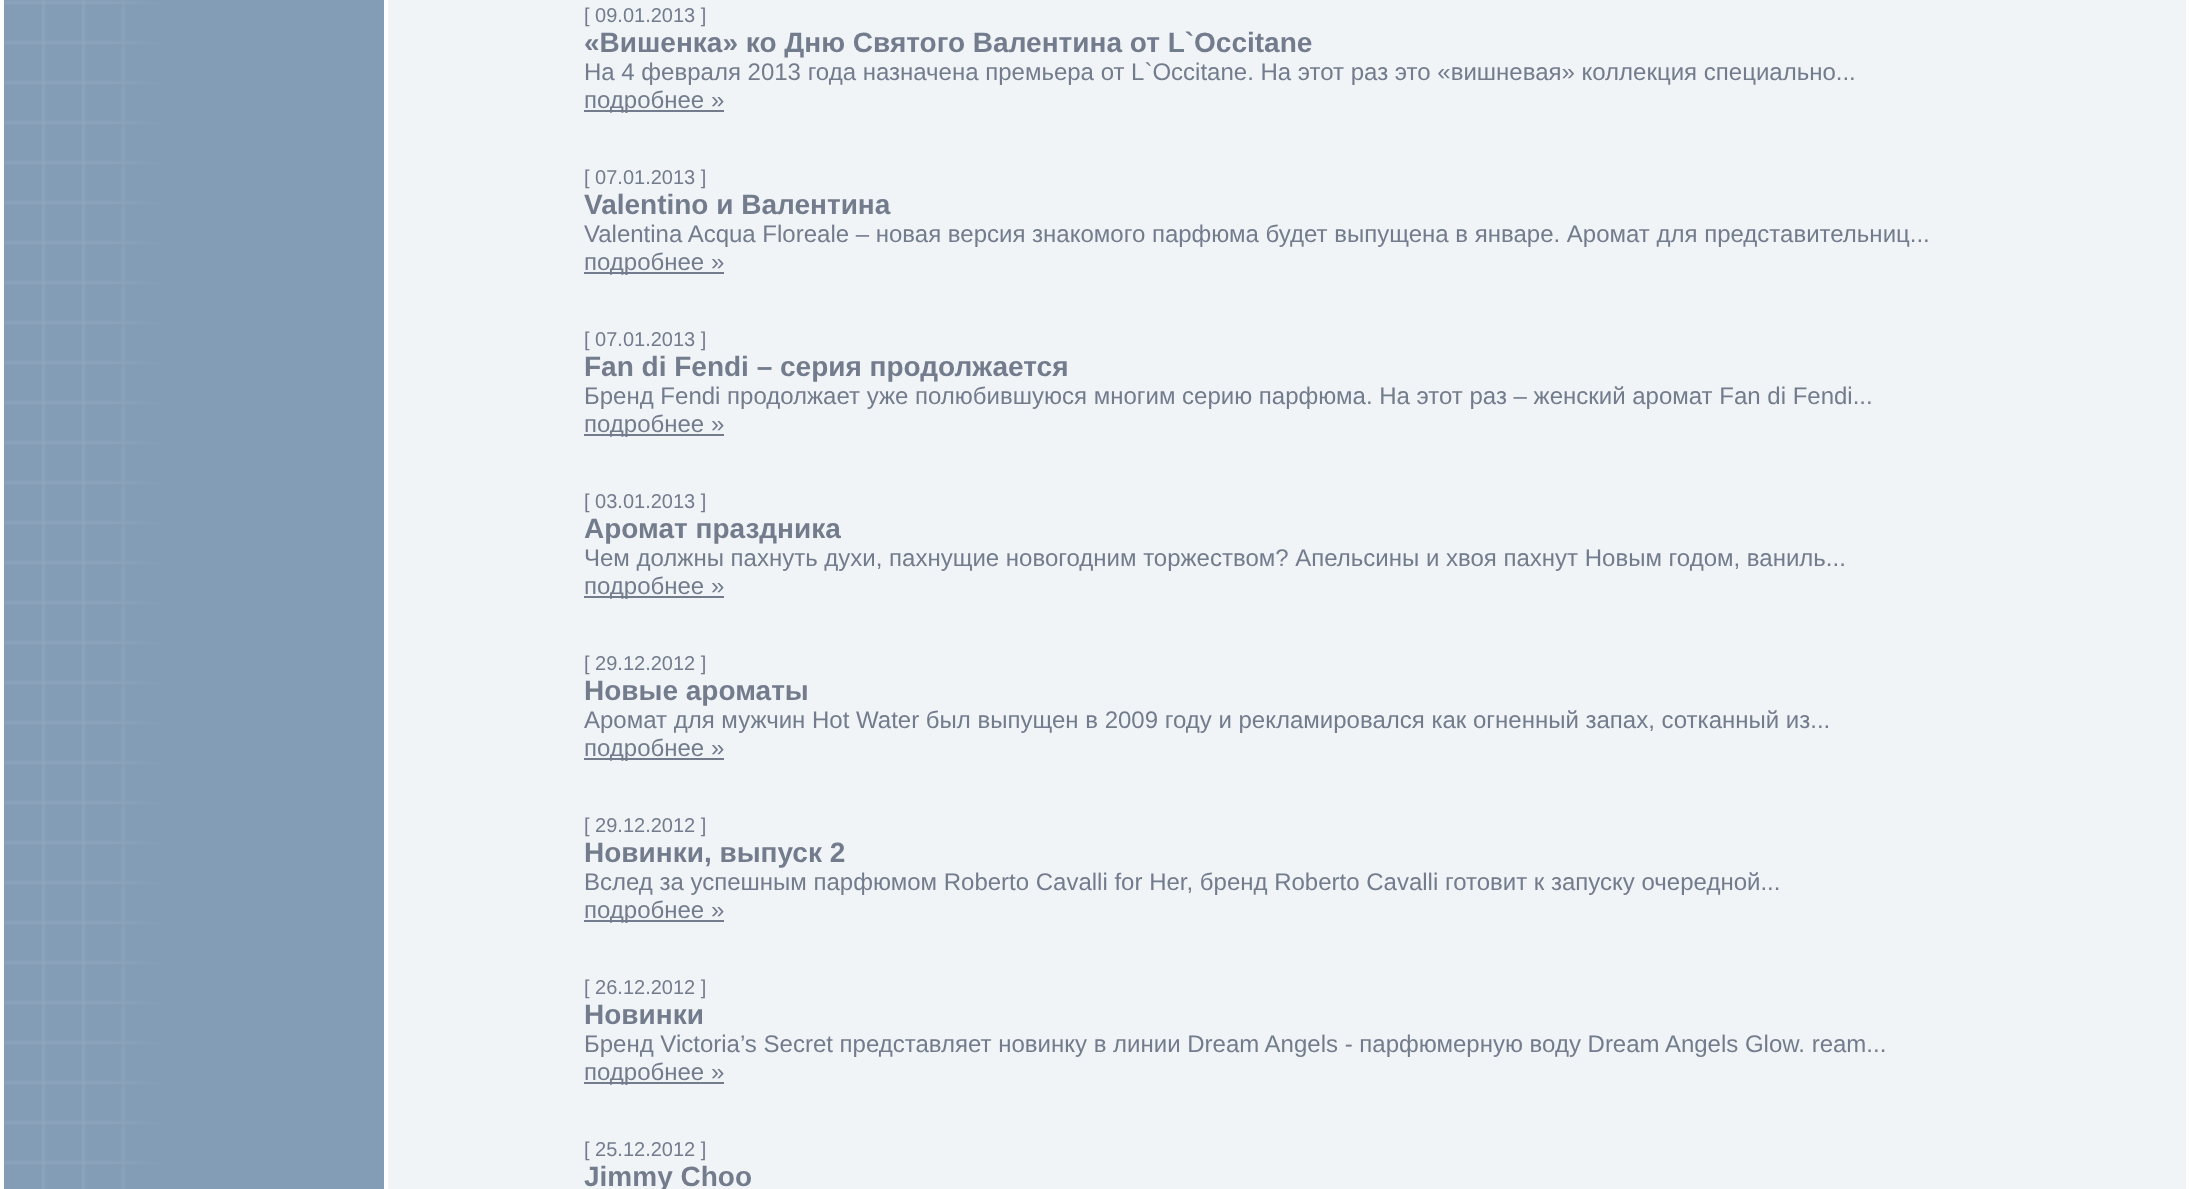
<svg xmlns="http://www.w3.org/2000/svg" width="2190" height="1189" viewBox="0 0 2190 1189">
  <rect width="100%" height="100%" fill="#ffffff"/>
  <image x="4" y="0" width="380" height="1189" href="img1.png"/>
  <rect x="388" y="0" width="1798" height="1189" fill="#f0f4f7"/>
  <text x="584" y="22" font-family="Liberation Sans" font-size="20" fill="#737c8d">[ 09.01.2013 ]</text>
  <text x="584" y="52" font-family="Liberation Sans" font-size="28" font-weight="bold" fill="#737c8d">«Вишенка» ко Дню Святого Валентина от L`Occitane</text>
  <text x="584" y="80" font-family="Liberation Sans" font-size="24" fill="#737c8d">На 4 февраля 2013 года назначена премьера от L`Occitane. На этот раз это «вишневая» коллекция специально...</text>
  <rect x="584" y="110" width="140" height="2" fill="#737c8d"/>
  <text x="584" y="108" font-family="Liberation Sans" font-size="24" fill="#737c8d">подробнее »</text>
  <text x="584" y="184" font-family="Liberation Sans" font-size="20" fill="#737c8d">[ 07.01.2013 ]</text>
  <text x="584" y="214" font-family="Liberation Sans" font-size="28" font-weight="bold" fill="#737c8d">Valentino и Валентина</text>
  <text x="584" y="242" font-family="Liberation Sans" font-size="24" fill="#737c8d">Valentina Acqua Floreale – новая версия знакомого парфюма будет выпущена в январе. Аромат для представительниц...</text>
  <rect x="584" y="272" width="140" height="2" fill="#737c8d"/>
  <text x="584" y="270" font-family="Liberation Sans" font-size="24" fill="#737c8d">подробнее »</text>
  <text x="584" y="346" font-family="Liberation Sans" font-size="20" fill="#737c8d">[ 07.01.2013 ]</text>
  <text x="584" y="376" font-family="Liberation Sans" font-size="28" font-weight="bold" fill="#737c8d">Fan di Fendi – серия продолжается</text>
  <text x="584" y="404" font-family="Liberation Sans" font-size="24" fill="#737c8d">Бренд Fendi продолжает уже полюбившуюся многим серию парфюма. На этот раз – женский аромат Fan di Fendi...</text>
  <rect x="584" y="434" width="140" height="2" fill="#737c8d"/>
  <text x="584" y="432" font-family="Liberation Sans" font-size="24" fill="#737c8d">подробнее »</text>
  <text x="584" y="508" font-family="Liberation Sans" font-size="20" fill="#737c8d">[ 03.01.2013 ]</text>
  <text x="584" y="538" font-family="Liberation Sans" font-size="28" font-weight="bold" fill="#737c8d">Аромат праздника</text>
  <text x="584" y="566" font-family="Liberation Sans" font-size="24" fill="#737c8d">Чем должны пахнуть духи, пахнущие новогодним торжеством? Апельсины и хвоя пахнут Новым годом, ваниль...</text>
  <rect x="584" y="596" width="140" height="2" fill="#737c8d"/>
  <text x="584" y="594" font-family="Liberation Sans" font-size="24" fill="#737c8d">подробнее »</text>
  <text x="584" y="670" font-family="Liberation Sans" font-size="20" fill="#737c8d">[ 29.12.2012 ]</text>
  <text x="584" y="700" font-family="Liberation Sans" font-size="28" font-weight="bold" fill="#737c8d">Новые ароматы</text>
  <text x="584" y="728" font-family="Liberation Sans" font-size="24" fill="#737c8d">Аромат для мужчин Hot Water был выпущен в 2009 году и рекламировался как огненный запах, сотканный из...</text>
  <rect x="584" y="758" width="140" height="2" fill="#737c8d"/>
  <text x="584" y="756" font-family="Liberation Sans" font-size="24" fill="#737c8d">подробнее »</text>
  <text x="584" y="832" font-family="Liberation Sans" font-size="20" fill="#737c8d">[ 29.12.2012 ]</text>
  <text x="584" y="862" font-family="Liberation Sans" font-size="28" font-weight="bold" fill="#737c8d">Новинки, выпуск 2</text>
  <text x="584" y="890" font-family="Liberation Sans" font-size="24" fill="#737c8d">Вслед за успешным парфюмом Roberto Cavalli for Her, бренд Roberto Cavalli готовит к запуску очередной...</text>
  <rect x="584" y="920" width="140" height="2" fill="#737c8d"/>
  <text x="584" y="918" font-family="Liberation Sans" font-size="24" fill="#737c8d">подробнее »</text>
  <text x="584" y="994" font-family="Liberation Sans" font-size="20" fill="#737c8d">[ 26.12.2012 ]</text>
  <text x="584" y="1024" font-family="Liberation Sans" font-size="28" font-weight="bold" fill="#737c8d">Новинки</text>
  <text x="584" y="1052" font-family="Liberation Sans" font-size="24" fill="#737c8d">Бренд Victoria’s Secret представляет новинку в линии Dream Angels - парфюмерную воду Dream Angels Glow. ream...</text>
  <rect x="584" y="1082" width="140" height="2" fill="#737c8d"/>
  <text x="584" y="1080" font-family="Liberation Sans" font-size="24" fill="#737c8d">подробнее »</text>
  <text x="584" y="1156" font-family="Liberation Sans" font-size="20" fill="#737c8d">[ 25.12.2012 ]</text>
  <text x="584" y="1186" font-family="Liberation Sans" font-size="28" font-weight="bold" fill="#737c8d">Jimmy Choo</text>
</svg>
